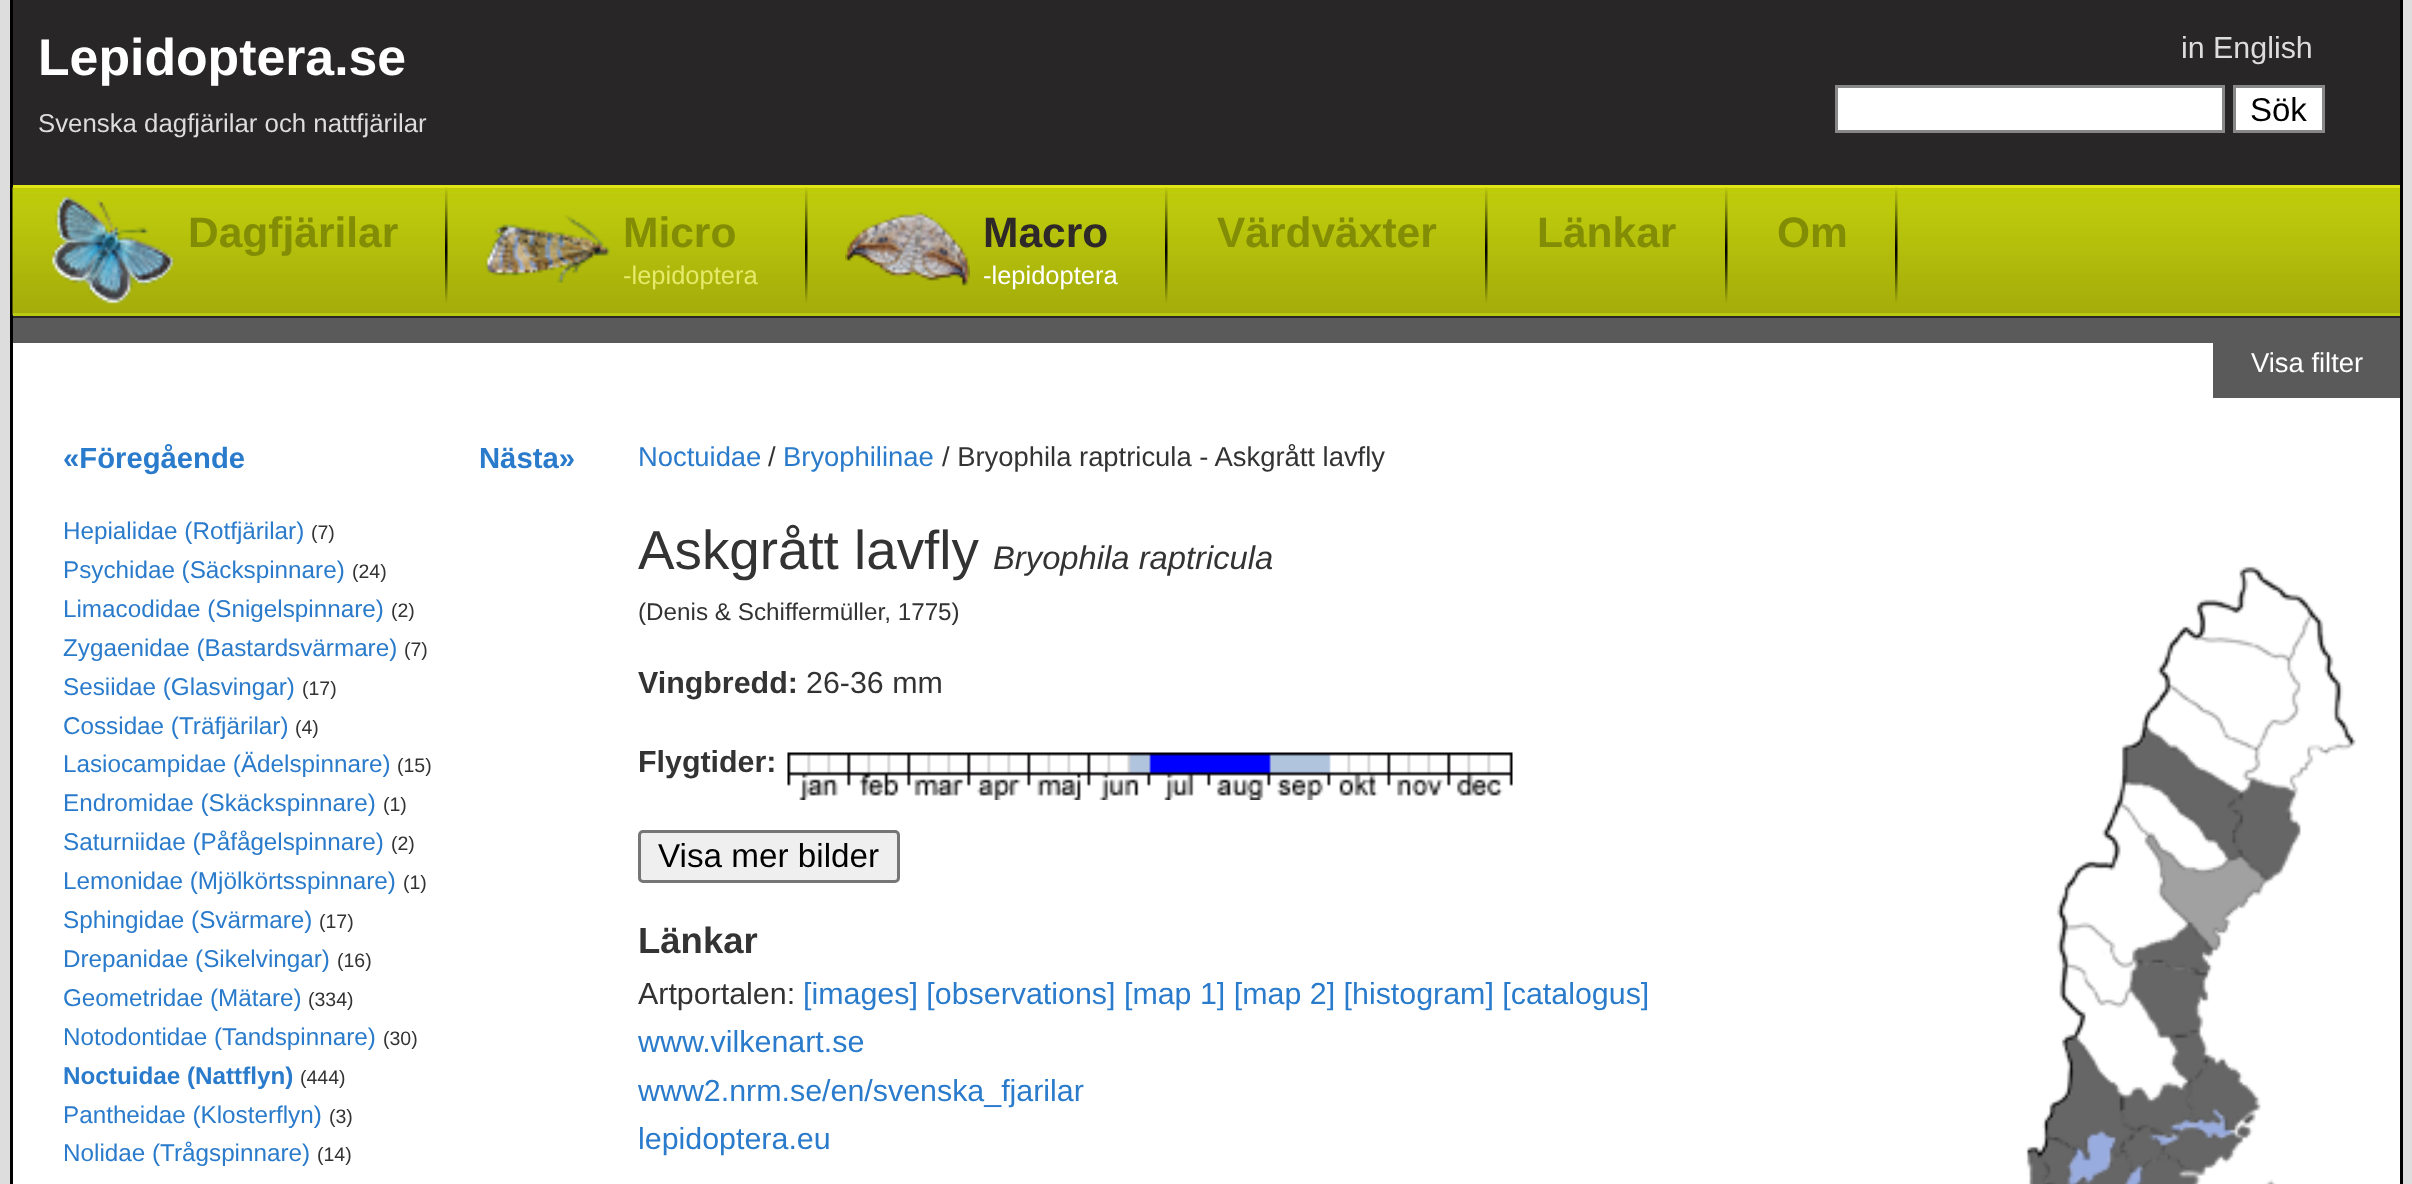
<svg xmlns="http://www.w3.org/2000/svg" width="2412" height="1184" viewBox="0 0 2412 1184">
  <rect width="100%" height="100%" fill="#dddddd"/>
  <rect x="13" y="343" width="2387" height="841" fill="#ffffff"/>
  <rect x="2400" y="0" width="3" height="1184" fill="#000000"/>
  <rect x="10" y="0" width="3" height="1184" fill="#000000"/>
  <rect x="13" y="0" width="2387" height="318" fill="#282627"/>
  <rect x="13" y="318" width="2387" height="25" fill="#5a5a5a"/>
  <text x="38" y="75" font-family="Liberation Sans" font-size="51.75" font-weight="bold" fill="#ffffff">Lepidoptera.se</text>
  <text x="38" y="132" font-family="Liberation Sans" font-size="25.8" fill="#dddddd">Svenska dagfjärilar och nattfjärilar</text>
  <text x="2181" y="58" font-family="Liberation Sans" font-size="30.4" fill="#dddddd">in English</text>
  <rect x="1836.5" y="86.5" width="387" height="45" fill="#ffffff" stroke="#888888" stroke-width="3"/>
  <rect x="2234.5" y="86.5" width="89" height="45" fill="#ffffff" stroke="#888888" stroke-width="3"/>
  <text x="2250" y="121" font-family="Liberation Sans" font-size="33" fill="#000000">Sök</text>
  <image x="12" y="187" width="2388" height="128" href="img1.png"/>
  <rect x="13" y="185" width="2387" height="3" fill="#e0e517"/>
  <rect x="13" y="313" width="2387" height="3" fill="#b8cb11"/>
  <image x="445" y="187" width="3" height="116" href="img2.png"/>
  <image x="51" y="196" width="124" height="109" href="img3.png"/>
  <text x="188" y="247" font-family="Liberation Sans" font-size="42.5" font-weight="bold" fill="#828c04">Dagfjärilar</text>
  <image x="805" y="187" width="3" height="116" href="img4.png"/>
  <image x="485" y="214" width="125" height="69" href="img5.png"/>
  <text x="623" y="247" font-family="Liberation Sans" font-size="42.5" font-weight="bold" fill="#828c04">Micro</text>
  <text x="623" y="284" font-family="Liberation Sans" font-size="25.5" fill="#e5ea69">-lepidoptera</text>
  <image x="1165" y="187" width="3" height="116" href="img2.png"/>
  <image x="845" y="212" width="125" height="74" href="img6.png"/>
  <text x="983" y="247" font-family="Liberation Sans" font-size="42.5" font-weight="bold" fill="#2e2828">Macro</text>
  <text x="983" y="284" font-family="Liberation Sans" font-size="25.5" fill="#ffffff">-lepidoptera</text>
  <image x="1485" y="187" width="3" height="116" href="img2.png"/>
  <text x="1217" y="247" font-family="Liberation Sans" font-size="42.5" font-weight="bold" fill="#828c04">Värdväxter</text>
  <image x="1725" y="187" width="3" height="116" href="img7.png"/>
  <text x="1537" y="247" font-family="Liberation Sans" font-size="42.5" font-weight="bold" fill="#828c04">Länkar</text>
  <image x="1895" y="187" width="3" height="116" href="img2.png"/>
  <text x="1777" y="247" font-family="Liberation Sans" font-size="42.5" font-weight="bold" fill="#828c04">Om</text>
  <rect x="2213" y="343" width="187" height="55" fill="#5a5a5a"/>
  <text x="2251" y="372" font-family="Liberation Sans" font-size="27.4" fill="#ffffff">Visa filter</text>
  <text x="63" y="468" font-family="Liberation Sans" font-size="29.25" font-weight="bold" fill="#2a7bcb">«Föregående</text>
  <text x="479" y="468" font-family="Liberation Sans" font-size="29.25" font-weight="bold" fill="#2a7bcb">Nästa»</text>
  <text x="63" y="539" font-family="Liberation Sans" font-size="24.25" fill="#2a7bcb">Hepialidae (Rotfjärilar)</text>
  <text x="311" y="539" font-family="Liberation Sans" font-size="19.5" fill="#333333">(7)</text>
  <text x="63" y="578" font-family="Liberation Sans" font-size="24.25" fill="#2a7bcb">Psychidae (Säckspinnare)</text>
  <text x="352" y="578" font-family="Liberation Sans" font-size="19.5" fill="#333333">(24)</text>
  <text x="63" y="617" font-family="Liberation Sans" font-size="24.25" fill="#2a7bcb">Limacodidae (Snigelspinnare)</text>
  <text x="391" y="617" font-family="Liberation Sans" font-size="19.5" fill="#333333">(2)</text>
  <text x="63" y="656" font-family="Liberation Sans" font-size="24.25" fill="#2a7bcb">Zygaenidae (Bastardsvärmare)</text>
  <text x="404" y="656" font-family="Liberation Sans" font-size="19.5" fill="#333333">(7)</text>
  <text x="63" y="695" font-family="Liberation Sans" font-size="24.25" fill="#2a7bcb">Sesiidae (Glasvingar)</text>
  <text x="302" y="695" font-family="Liberation Sans" font-size="19.5" fill="#333333">(17)</text>
  <text x="63" y="734" font-family="Liberation Sans" font-size="24.25" fill="#2a7bcb">Cossidae (Träfjärilar)</text>
  <text x="295" y="734" font-family="Liberation Sans" font-size="19.5" fill="#333333">(4)</text>
  <text x="63" y="772" font-family="Liberation Sans" font-size="24.25" fill="#2a7bcb">Lasiocampidae (Ädelspinnare)</text>
  <text x="397" y="772" font-family="Liberation Sans" font-size="19.5" fill="#333333">(15)</text>
  <text x="63" y="811" font-family="Liberation Sans" font-size="24.25" fill="#2a7bcb">Endromidae (Skäckspinnare)</text>
  <text x="383" y="811" font-family="Liberation Sans" font-size="19.5" fill="#333333">(1)</text>
  <text x="63" y="850" font-family="Liberation Sans" font-size="24.25" fill="#2a7bcb">Saturniidae (Påfågelspinnare)</text>
  <text x="391" y="850" font-family="Liberation Sans" font-size="19.5" fill="#333333">(2)</text>
  <text x="63" y="889" font-family="Liberation Sans" font-size="24.25" fill="#2a7bcb">Lemonidae (Mjölkörtsspinnare)</text>
  <text x="403" y="889" font-family="Liberation Sans" font-size="19.5" fill="#333333">(1)</text>
  <text x="63" y="928" font-family="Liberation Sans" font-size="24.25" fill="#2a7bcb">Sphingidae (Svärmare)</text>
  <text x="319" y="928" font-family="Liberation Sans" font-size="19.5" fill="#333333">(17)</text>
  <text x="63" y="967" font-family="Liberation Sans" font-size="24.25" fill="#2a7bcb">Drepanidae (Sikelvingar)</text>
  <text x="337" y="967" font-family="Liberation Sans" font-size="19.5" fill="#333333">(16)</text>
  <text x="63" y="1006" font-family="Liberation Sans" font-size="24.25" fill="#2a7bcb">Geometridae (Mätare)</text>
  <text x="308" y="1006" font-family="Liberation Sans" font-size="19.5" fill="#333333">(334)</text>
  <text x="63" y="1045" font-family="Liberation Sans" font-size="24.25" fill="#2a7bcb">Notodontidae (Tandspinnare)</text>
  <text x="383" y="1045" font-family="Liberation Sans" font-size="19.5" fill="#333333">(30)</text>
  <text x="63" y="1084" font-family="Liberation Sans" font-size="24.25" font-weight="bold" fill="#2a7bcb">Noctuidae (Nattflyn)</text>
  <text x="300" y="1084" font-family="Liberation Sans" font-size="19.5" fill="#333333">(444)</text>
  <text x="63" y="1123" font-family="Liberation Sans" font-size="24.25" fill="#2a7bcb">Pantheidae (Klosterflyn)</text>
  <text x="329" y="1123" font-family="Liberation Sans" font-size="19.5" fill="#333333">(3)</text>
  <text x="63" y="1161" font-family="Liberation Sans" font-size="24.25" fill="#2a7bcb">Nolidae (Trågspinnare)</text>
  <text x="317" y="1161" font-family="Liberation Sans" font-size="19.5" fill="#333333">(14)</text>
  <text x="638" y="466" font-family="Liberation Sans" font-size="27.4" fill="#2a7bcb">Noctuidae</text>
  <text x="768" y="466" font-family="Liberation Sans" font-size="27.4" fill="#333333">/</text>
  <text x="783" y="466" font-family="Liberation Sans" font-size="27.4" fill="#2a7bcb">Bryophilinae</text>
  <text x="942" y="466" font-family="Liberation Sans" font-size="27.4" fill="#333333">/ Bryophila raptricula - Askgrått lavfly</text>
  <text x="638" y="569" font-family="Liberation Sans" font-size="54.75" fill="#333333">Askgrått lavfly</text>
  <text x="993" y="569" font-family="Liberation Sans" font-size="32.75" font-style="italic" fill="#333333">Bryophila raptricula</text>
  <text x="638" y="620" font-family="Liberation Sans" font-size="24.25" fill="#333333">(Denis &amp; Schiffermüller, 1775)</text>
  <text x="638" y="693" font-family="Liberation Sans" font-size="30.4" font-weight="bold" fill="#333333">Vingbredd:</text>
  <text x="806" y="693" font-family="Liberation Sans" font-size="30.4" fill="#333333">26-36 mm</text>
  <text x="638" y="772" font-family="Liberation Sans" font-size="30.4" font-weight="bold" fill="#333333">Flygtider:</text>
  <image x="787" y="752" width="726" height="48" href="img8.png"/>
  <rect x="639.5" y="831.5" width="259" height="50" rx="3.5" fill="#efefef" stroke="#767676" stroke-width="3"/>
  <text x="658" y="867" font-family="Liberation Sans" font-size="33.25" fill="#000000">Visa mer bilder</text>
  <text x="638" y="953" font-family="Liberation Sans" font-size="36.5" font-weight="bold" fill="#333333">Länkar</text>
  <text x="638" y="1004" font-family="Liberation Sans" font-size="30.4" fill="#333333">Artportalen:</text>
  <text x="803" y="1004" font-family="Liberation Sans" font-size="30.4" fill="#2a7bcb">[images] [observations] [map 1] [map 2] [histogram] [catalogus]</text>
  <text x="638" y="1052" font-family="Liberation Sans" font-size="30.4" fill="#2a7bcb">www.vilkenart.se</text>
  <text x="638" y="1101" font-family="Liberation Sans" font-size="30.4" fill="#2a7bcb">www2.nrm.se/en/svenska_fjarilar</text>
  <text x="638" y="1149" font-family="Liberation Sans" font-size="30.4" fill="#2a7bcb">lepidoptera.eu</text>
  <image x="2026" y="566" width="330" height="618" href="img9.png"/>
</svg>
